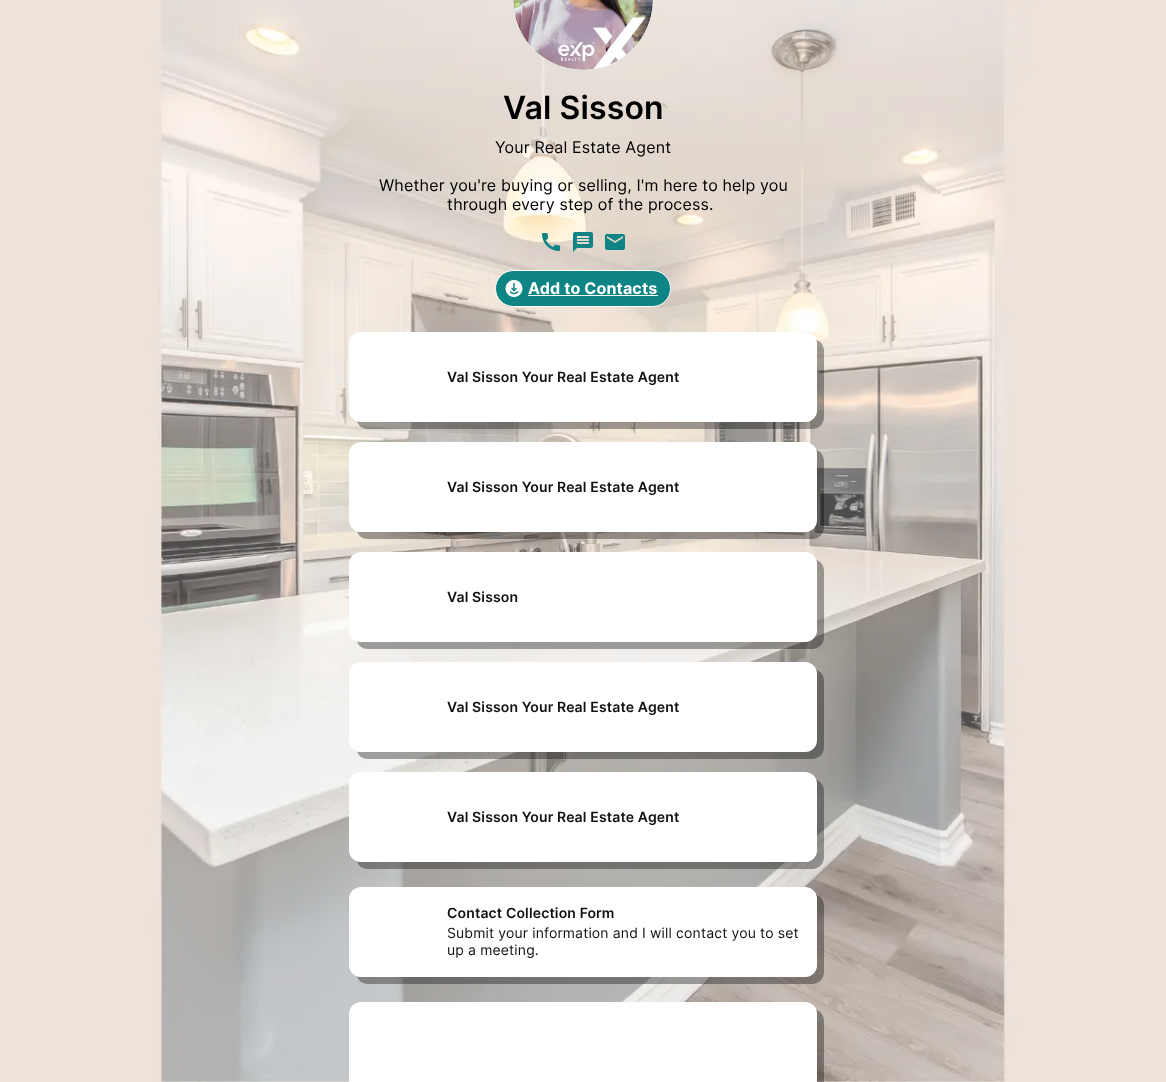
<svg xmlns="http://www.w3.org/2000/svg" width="1166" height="1082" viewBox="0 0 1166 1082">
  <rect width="100%" height="100%" fill="#ffffff"/>
  <image x="0" y="0" width="1166" height="1082" href="img1.png"/>
  <image x="513" y="0" width="140" height="70" href="img2.png"/>
  <text x="503" y="119" font-family="Inter" font-size="32" font-weight="600" letter-spacing="0.15" fill="#000000">Val Sisson</text>
  <text x="495" y="153" font-family="Inter" font-size="16" letter-spacing="0.15" fill="#000000">Your Real Estate Agent</text>
  <text x="379" y="191" font-family="Inter" font-size="16" letter-spacing="0.15" fill="#000000">Whether you're buying or selling, I'm here to help you</text>
  <text x="447" y="210" font-family="Inter" font-size="16" letter-spacing="0.15" fill="#000000">through every step of the process.</text>
  <image x="542" y="233" width="18" height="18" href="img3.png"/>
  <image x="573" y="232" width="20" height="20" href="img4.png"/>
  <image x="605" y="234" width="20" height="16" href="img5.png"/>
  <rect x="495.5" y="270.5" width="175" height="36" rx="18" fill="#0e8484" stroke="#ffffff"/>
  <image x="505" y="279" width="18" height="19" href="img6.png"/>
  <text x="528" y="294" font-family="Inter" font-size="16" font-weight="bold" letter-spacing="0.15" fill="#ffffff">Add to Contacts</text>
  <rect x="528" y="295" width="130" height="1" fill="#ffffff"/>
  <path d="M357 421C358 426 363 429 368 429H812C819 429 824 424 824 417V351C824 346 821 341 816 340L817 344V410C817 417 812 422 805 422H361Z" fill="#000000" fill-opacity="0.35"/>
  <rect x="349" y="332" width="468" height="90" rx="12" fill="#ffffff"/>
  <text x="447" y="382" font-family="Inter" font-size="14" font-weight="600" letter-spacing="0.15" fill="#111111">Val Sisson Your Real Estate Agent</text>
  <path d="M357 531C358 536 363 539 368 539H812C819 539 824 534 824 527V461C824 456 821 451 816 450L817 454V520C817 527 812 532 805 532H361Z" fill="#000000" fill-opacity="0.35"/>
  <rect x="349" y="442" width="468" height="90" rx="12" fill="#ffffff"/>
  <text x="447" y="492" font-family="Inter" font-size="14" font-weight="600" letter-spacing="0.15" fill="#111111">Val Sisson Your Real Estate Agent</text>
  <path d="M357 641C358 646 363 649 368 649H812C819 649 824 644 824 637V571C824 566 821 561 816 560L817 564V630C817 637 812 642 805 642H361Z" fill="#000000" fill-opacity="0.35"/>
  <rect x="349" y="552" width="468" height="90" rx="12" fill="#ffffff"/>
  <text x="447" y="602" font-family="Inter" font-size="14" font-weight="600" letter-spacing="0.15" fill="#111111">Val Sisson</text>
  <path d="M357 751C358 756 363 759 368 759H812C819 759 824 754 824 747V681C824 676 821 671 816 670L817 674V740C817 747 812 752 805 752H361Z" fill="#000000" fill-opacity="0.35"/>
  <rect x="349" y="662" width="468" height="90" rx="12" fill="#ffffff"/>
  <text x="447" y="712" font-family="Inter" font-size="14" font-weight="600" letter-spacing="0.15" fill="#111111">Val Sisson Your Real Estate Agent</text>
  <path d="M357 861C358 866 363 869 368 869H812C819 869 824 864 824 857V791C824 786 821 781 816 780L817 784V850C817 857 812 862 805 862H361Z" fill="#000000" fill-opacity="0.35"/>
  <rect x="349" y="772" width="468" height="90" rx="12" fill="#ffffff"/>
  <text x="447" y="822" font-family="Inter" font-size="14" font-weight="600" letter-spacing="0.15" fill="#111111">Val Sisson Your Real Estate Agent</text>
  <path d="M357 976C358 981 363 984 368 984H812C819 984 824 979 824 972V906C824 901 821 896 816 895L817 899V965C817 972 812 977 805 977H361Z" fill="#000000" fill-opacity="0.35"/>
  <rect x="349" y="887" width="468" height="90" rx="12" fill="#ffffff"/>
  <text x="447" y="918" font-family="Inter" font-size="14" font-weight="600" letter-spacing="0.15" fill="#111111">Contact Collection Form</text>
  <text x="447" y="938" font-family="Inter" font-size="14" letter-spacing="0.15" fill="#111111">Submit your information and I will contact you to set</text>
  <text x="447" y="955" font-family="Inter" font-size="14" letter-spacing="0.15" fill="#111111">up a meeting.</text>
  <path d="M357 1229C358 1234 363 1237 368 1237H812C819 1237 824 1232 824 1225V1021C824 1016 821 1011 816 1010L817 1014V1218C817 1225 812 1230 805 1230H361Z" fill="#000000" fill-opacity="0.35"/>
  <rect x="349" y="1002" width="468" height="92" rx="12" fill="#ffffff"/>
</svg>
